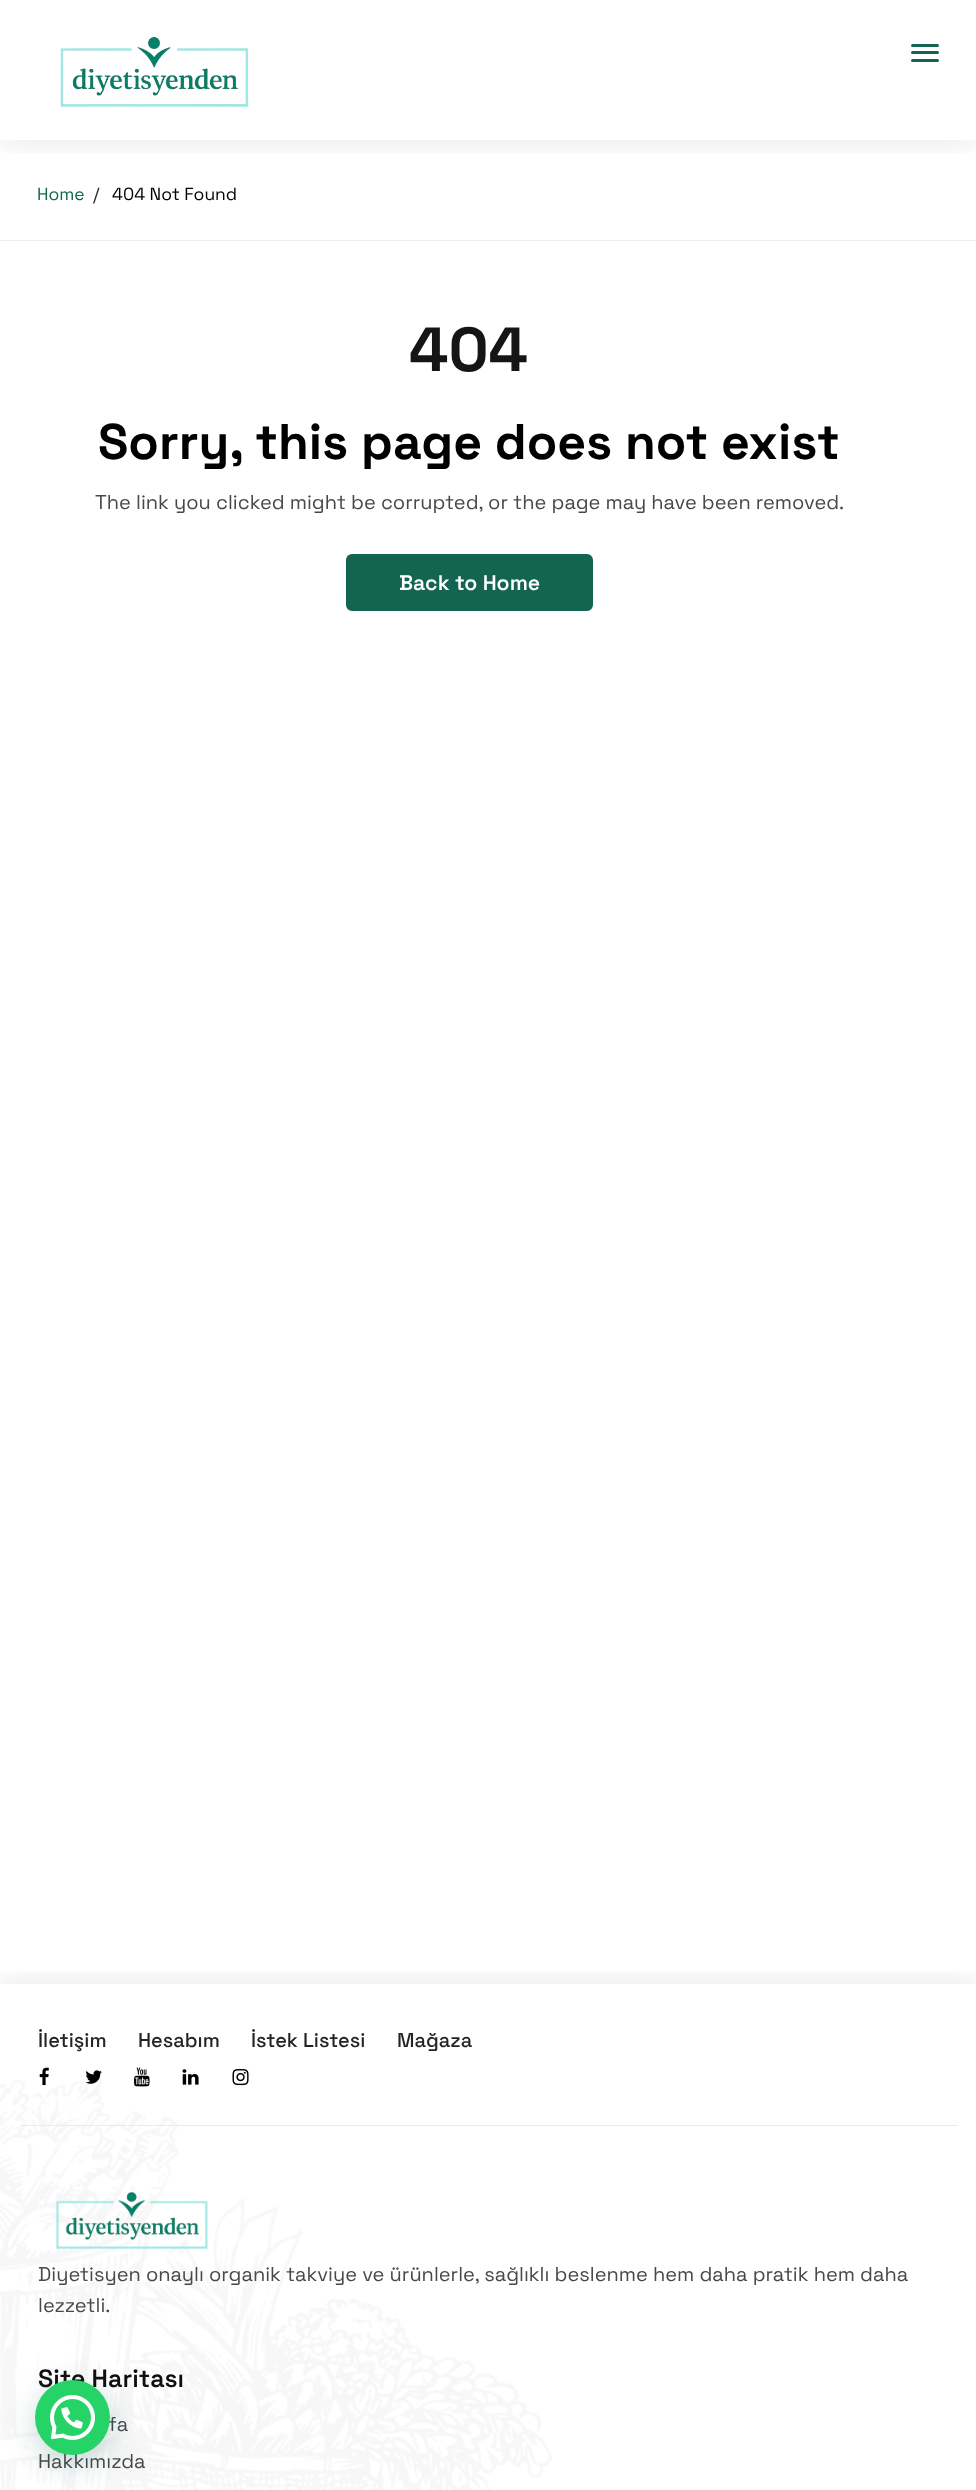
<svg xmlns="http://www.w3.org/2000/svg" width="976" height="2490" viewBox="0 0 976 2490">
  <defs>
    <clipPath id="clip1"><rect x="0" y="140" width="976" height="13"/></clipPath>
    <filter id="blur1" x="-50%" y="-200%" width="200%" height="500%"><feGaussianBlur stdDeviation="15.5"/></filter>
    <clipPath id="clip2"><rect x="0" y="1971" width="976" height="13"/></clipPath>
    <filter id="blur2" x="-50%" y="-200%" width="200%" height="500%"><feGaussianBlur stdDeviation="15"/></filter>
  </defs>
  <rect width="100%" height="100%" fill="#ffffff"/>
  <g clip-path="url(#clip1)">
    <rect x="0" y="0" width="976" height="140" fill="#000000" fill-opacity="0.1" filter="url(#blur1)"/>
  </g>
  <image x="60" y="36" width="189" height="71" href="img1.png"/>
  <rect x="911" y="44" width="28" height="3" rx="1.5" fill="#136450"/>
  <rect x="911" y="51" width="28" height="3" rx="1.5" fill="#136450"/>
  <rect x="911" y="59" width="28" height="3" rx="1.5" fill="#136450"/>
  <rect x="0" y="240" width="976" height="1" fill="#eeeeee"/>
  <text x="37" y="200" font-family="Space Grotesk" font-size="17.5" fill="#136450">Home</text>
  <text x="93" y="200" font-family="Space Grotesk" font-size="17.5" fill="#242424">/</text>
  <text x="112" y="200" font-family="Space Grotesk" font-size="17.5" fill="#000000">404 Not Found</text>
  <text x="409" y="371" font-family="Space Grotesk" font-size="62" font-weight="bold" fill="#151515">404</text>
  <text x="98" y="459" font-family="Space Grotesk" font-size="50" font-weight="bold" fill="#000000">Sorry, this page does not exist</text>
  <text x="95" y="509" font-family="Space Grotesk" font-size="20" fill="#484848">The link you clicked might be corrupted, or the page may have been removed.</text>
  <rect x="347.5" y="555.5" width="244" height="54" rx="4.5" fill="#136450" stroke="#136450" stroke-width="3"/>
  <text x="399" y="590" font-family="Space Grotesk" font-size="21.25" font-weight="600" fill="#ffffff">Back to Home</text>
  <g clip-path="url(#clip2)">
    <rect x="0" y="1984" width="976" height="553" fill="#000000" fill-opacity="0.1" filter="url(#blur1)"/>
  </g>
  <image x="0" y="2077" width="552" height="413" href="img2.png"/>
  <text x="38" y="2047" font-family="Space Grotesk" font-size="20" font-weight="500" fill="#242424">İletişim</text>
  <text x="138" y="2047" font-family="Space Grotesk" font-size="20" font-weight="500" fill="#242424">Hesabım</text>
  <text x="251" y="2047" font-family="Space Grotesk" font-size="20" font-weight="500" fill="#242424">İstek Listesi</text>
  <text x="397" y="2047" font-family="Space Grotesk" font-size="20" font-weight="500" fill="#242424">Mağaza</text>
  <image x="39" y="2067" width="10" height="19" href="img3.png"/>
  <image x="85" y="2070" width="17" height="14" href="img4.png"/>
  <image x="134" y="2067" width="16" height="20" href="img5.png"/>
  <image x="182" y="2069" width="17" height="16" href="img6.png"/>
  <image x="232" y="2069" width="17" height="17" href="img7.png"/>
  <rect x="20" y="2125" width="938" height="1" fill="#ebebeb"/>
  <image x="56" y="2191" width="152" height="59" href="img8.png"/>
  <text x="38" y="2281" font-family="Space Grotesk" font-size="20" fill="#484848">Diyetisyen onaylı organik takviye ve ürünlerle, sağlıklı beslenme hem daha pratik hem daha</text>
  <text x="38" y="2312" font-family="Space Grotesk" font-size="20" fill="#484848">lezzetli.</text>
  <text x="38" y="2387" font-family="Space Grotesk" font-size="25" font-weight="600" fill="#0f0f0f">Site Haritası</text>
  <text x="108" y="2431" font-family="Space Grotesk" font-size="20" fill="#484848">fa</text>
  <text x="38" y="2468" font-family="Space Grotesk" font-size="20" fill="#484848">Hakkımızda</text>
  <rect x="36" y="2388" width="75" height="75" rx="37.5" fill="#075e54" fill-opacity="0.24" filter="url(#blur2)"/>
  <circle cx="72.5" cy="2417.5" r="37.5" fill="#25d366"/>
  <image x="50" y="2395" width="45" height="45" href="img9.png"/>
</svg>
